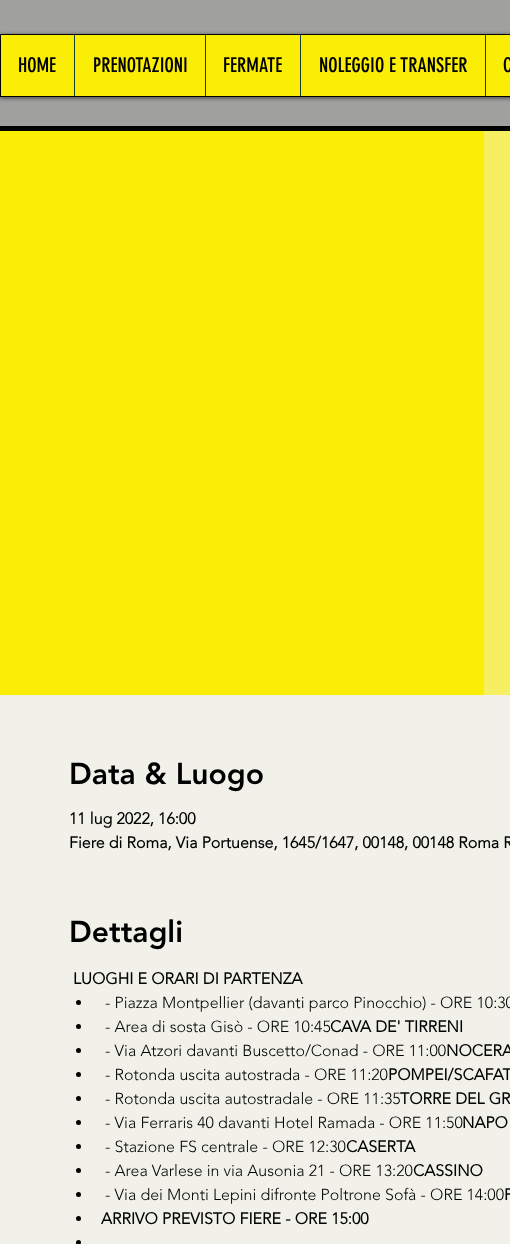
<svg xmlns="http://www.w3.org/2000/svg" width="510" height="1244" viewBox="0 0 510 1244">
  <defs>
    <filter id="blur1" x="-50%" y="-200%" width="200%" height="500%"><feGaussianBlur stdDeviation="2"/></filter>
  </defs>
  <rect width="100%" height="100%" fill="#a0a09f"/>
  <rect x="0" y="35" width="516" height="63" fill="#000000" fill-opacity="0.6" filter="url(#blur1)"/>
  <rect x="0.5" y="34.5" width="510" height="62" fill="#faee05" stroke="#000000"/>
  <text x="18" y="72" font-family="'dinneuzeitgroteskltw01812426'" font-size="20" fill="#000000">HOME</text>
  <rect x="74" y="35" width="1" height="61" fill="#163e3a"/>
  <text x="93" y="72" font-family="'dinneuzeitgroteskltw01812426'" font-size="20" fill="#000000">PRENOTAZIONI</text>
  <rect x="205" y="35" width="1" height="61" fill="#163e3a"/>
  <text x="223" y="72" font-family="'dinneuzeitgroteskltw01812426'" font-size="20" fill="#000000">FERMATE</text>
  <rect x="300" y="35" width="1" height="61" fill="#163e3a"/>
  <text x="319" y="72" font-family="'dinneuzeitgroteskltw01812426'" font-size="20" fill="#000000">NOLEGGIO E TRANSFER</text>
  <rect x="485" y="35" width="1" height="61" fill="#163e3a"/>
  <text x="503" y="72" font-family="'dinneuzeitgroteskltw01812426'" font-size="20" fill="#000000">C</text>
  <rect x="0" y="126" width="510" height="5" fill="#000000"/>
  <rect x="0" y="131" width="484" height="564" fill="#faee05"/>
  <rect x="484" y="131" width="26" height="564" fill="#f6ef61"/>
  <rect x="0" y="695" width="510" height="549" fill="#f1f1ea"/>
  <text x="69" y="784" font-family="'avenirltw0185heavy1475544'" font-size="30" font-weight="900" fill="#000000">Data &amp; Luogo</text>
  <text x="69" y="824" font-family="'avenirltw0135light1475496'" font-size="16" font-weight="bold" fill="#000000">11 lug 2022, 16:00</text>
  <text x="69" y="848" font-family="'avenirltw0135light1475496'" font-size="16" font-weight="bold" fill="#000000">Fiere di Roma, Via Portuense, 1645/1647, 00148, 00148 Roma R</text>
  <text x="69" y="942" font-family="'avenirltw0185heavy1475544'" font-size="30" font-weight="900" fill="#000000">Dettagli</text>
  <text x="73" y="984" font-family="'avenirltw0135light1475496'" font-size="16" font-weight="bold" fill="#000000">LUOGHI E ORARI DI PARTENZA</text>
  <circle cx="78.5" cy="1002.5" r="2.5" fill="#000000"/>
  <text x="105" y="1008" font-family="'avenirltw0135light1475496'" font-size="16" font-weight="300" fill="#000000">- Piazza Montpellier (davanti parco Pinocchio) - ORE 10:30</text>
  <circle cx="78.5" cy="1026.5" r="2.5" fill="#000000"/>
  <text x="105" y="1032" font-family="'avenirltw0135light1475496'" font-size="16" font-weight="300" fill="#000000">- Area di sosta Gisò - ORE 10:45</text>
  <text x="330" y="1032" font-family="'avenirltw0135light1475496'" font-size="16" font-weight="bold" fill="#000000">CAVA DE' TIRRENI</text>
  <circle cx="78.5" cy="1050.5" r="2.5" fill="#000000"/>
  <text x="105" y="1056" font-family="'avenirltw0135light1475496'" font-size="16" font-weight="300" fill="#000000">- Via Atzori davanti Buscetto/Conad - ORE 11:00</text>
  <text x="446" y="1056" font-family="'avenirltw0135light1475496'" font-size="16" font-weight="bold" fill="#000000">NOCERA</text>
  <circle cx="78.5" cy="1074.5" r="2.5" fill="#000000"/>
  <text x="105" y="1080" font-family="'avenirltw0135light1475496'" font-size="16" font-weight="300" fill="#000000">- Rotonda uscita autostrada - ORE 11:20</text>
  <text x="388" y="1080" font-family="'avenirltw0135light1475496'" font-size="16" font-weight="bold" fill="#000000">POMPEI/SCAFAT</text>
  <circle cx="78.5" cy="1098.5" r="2.5" fill="#000000"/>
  <text x="105" y="1104" font-family="'avenirltw0135light1475496'" font-size="16" font-weight="300" fill="#000000">- Rotonda uscita autostradale - ORE 11:35</text>
  <text x="400" y="1104" font-family="'avenirltw0135light1475496'" font-size="16" font-weight="bold" fill="#000000">TORRE DEL GR</text>
  <circle cx="78.5" cy="1122.5" r="2.5" fill="#000000"/>
  <text x="105" y="1128" font-family="'avenirltw0135light1475496'" font-size="16" font-weight="300" fill="#000000">- Via Ferraris 40 davanti Hotel Ramada - ORE 11:50</text>
  <text x="462" y="1128" font-family="'avenirltw0135light1475496'" font-size="16" font-weight="bold" fill="#000000">NAPO</text>
  <circle cx="78.5" cy="1146.5" r="2.5" fill="#000000"/>
  <text x="105" y="1152" font-family="'avenirltw0135light1475496'" font-size="16" font-weight="300" fill="#000000">- Stazione FS centrale - ORE 12:30</text>
  <text x="346" y="1152" font-family="'avenirltw0135light1475496'" font-size="16" font-weight="bold" fill="#000000">CASERTA</text>
  <circle cx="78.5" cy="1170.5" r="2.5" fill="#000000"/>
  <text x="105" y="1176" font-family="'avenirltw0135light1475496'" font-size="16" font-weight="300" fill="#000000">- Area Varlese in via Ausonia 21 - ORE 13:20</text>
  <text x="413" y="1176" font-family="'avenirltw0135light1475496'" font-size="16" font-weight="bold" fill="#000000">CASSINO</text>
  <circle cx="78.5" cy="1194.5" r="2.5" fill="#000000"/>
  <text x="105" y="1200" font-family="'avenirltw0135light1475496'" font-size="16" font-weight="300" fill="#000000">- Via dei Monti Lepini difronte Poltrone Sofà - ORE 14:00</text>
  <text x="504" y="1200" font-family="'avenirltw0135light1475496'" font-size="16" font-weight="bold" fill="#000000">F</text>
  <circle cx="78.5" cy="1218.5" r="2.5" fill="#000000"/>
  <text x="101" y="1224" font-family="'avenirltw0135light1475496'" font-size="16" font-weight="bold" fill="#000000">ARRIVO PREVISTO FIERE - ORE 15:00</text>
  <circle cx="78.5" cy="1242.5" r="2.5" fill="#000000"/>
</svg>
